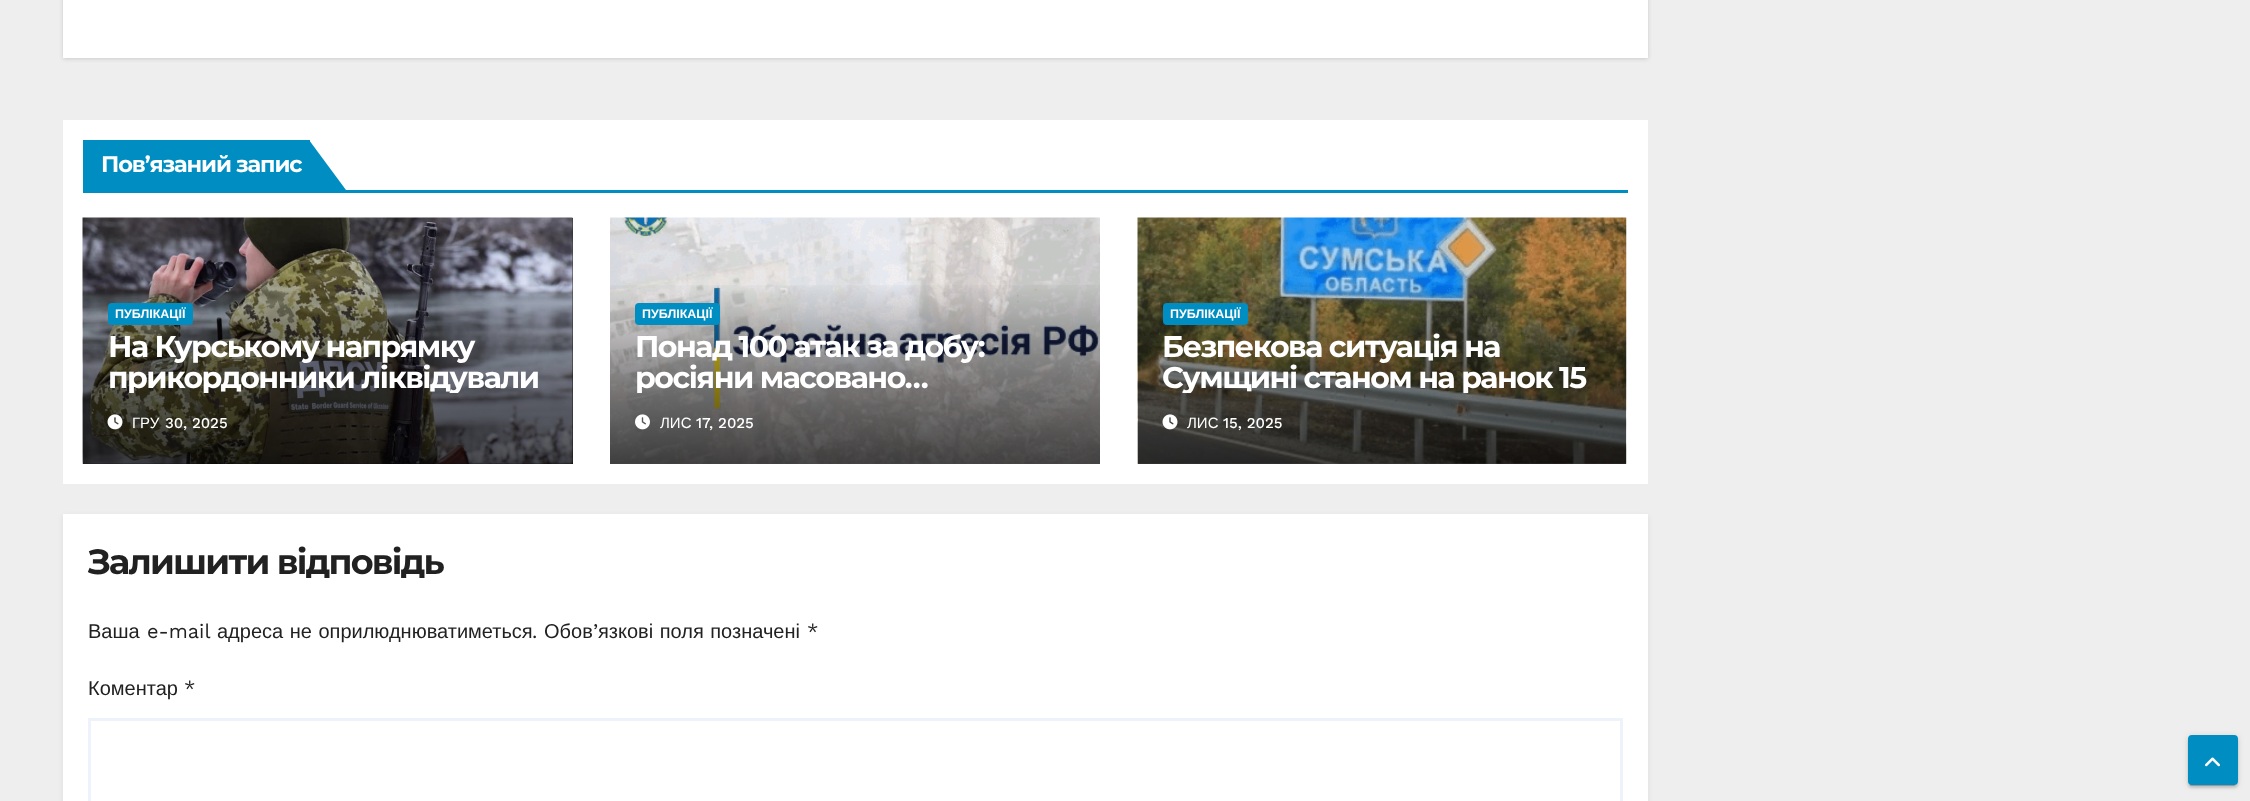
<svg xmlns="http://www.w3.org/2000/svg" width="2250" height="801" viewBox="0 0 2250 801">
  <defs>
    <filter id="blur1" x="-50%" y="-200%" width="200%" height="500%"><feGaussianBlur stdDeviation="2"/></filter>
    <linearGradient id="g1" gradientUnits="userSpaceOnUse" x1="328" y1="280" x2="328" y2="464"><stop offset="0" stop-color="#000000" stop-opacity="0"/><stop offset="0.5" stop-color="#000000" stop-opacity="0.4"/><stop offset="1" stop-color="#000000" stop-opacity="0.7"/></linearGradient>
    <clipPath id="clip1"><rect x="108" y="330" width="440" height="63"/></clipPath>
    <linearGradient id="g2" gradientUnits="userSpaceOnUse" x1="855" y1="280" x2="855" y2="464"><stop offset="0" stop-color="#000000" stop-opacity="0"/><stop offset="0.5" stop-color="#000000" stop-opacity="0.4"/><stop offset="1" stop-color="#000000" stop-opacity="0.7"/></linearGradient>
    <clipPath id="clip2"><rect x="635" y="330" width="440" height="63"/></clipPath>
    <linearGradient id="g3" gradientUnits="userSpaceOnUse" x1="1382" y1="280" x2="1382" y2="464"><stop offset="0" stop-color="#000000" stop-opacity="0"/><stop offset="0.5" stop-color="#000000" stop-opacity="0.4"/><stop offset="1" stop-color="#000000" stop-opacity="0.7"/></linearGradient>
    <clipPath id="clip3"><rect x="1163" y="330" width="438" height="63"/></clipPath>
    <filter id="blur2" x="-50%" y="-200%" width="200%" height="500%"><feGaussianBlur stdDeviation="2.5"/></filter>
    <filter id="blur3" x="-50%" y="-200%" width="200%" height="500%"><feGaussianBlur stdDeviation="3"/></filter>
    <filter id="blur4" x="-50%" y="-200%" width="200%" height="500%"><feGaussianBlur stdDeviation="0.5"/></filter>
    <filter id="blur5" x="-50%" y="-200%" width="200%" height="500%"><feGaussianBlur stdDeviation="1"/></filter>
  </defs>
  <rect width="100%" height="100%" fill="#eeeeee"/>
  <rect x="63" y="-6" width="1585" height="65" fill="#000000" fill-opacity="0.15" filter="url(#blur1)"/>
  <rect x="63" y="0" width="1585" height="58" fill="#ffffff"/>
  <rect x="63" y="120" width="1585" height="364" fill="#ffffff"/>
  <rect x="83" y="190" width="1545" height="3" fill="#008ec2"/>
  <rect x="83" y="140" width="227" height="50" fill="#008ec2"/>
  <text x="101" y="172" font-family="Montserrat" font-size="22.5" font-weight="bold" letter-spacing="-1.1" fill="#ffffff">Пов’язаний запис</text>
  <path d="M309 190V140L346 190Z" fill="#008ec2"/>
  <rect x="83" y="218" width="490" height="246" fill="#333333"/>
  <image x="82" y="217" width="491" height="247" href="img1.png"/>
  <rect x="83" y="285" width="490" height="179" fill="url(#g1)"/>
  <rect x="108" y="303" width="85" height="22" rx="4" fill="#008ec2"/>
  <text x="115" y="318" font-family="Liberation Sans" font-size="12.5" font-weight="bold" fill="#ffffff">ПУБЛІКАЦІЇ</text>
  <text x="108" y="357" font-family="Montserrat" font-size="30" font-weight="bold" letter-spacing="-1.5" fill="#ffffff">На Курському напрямку</text>
  <g clip-path="url(#clip1)">
    <text x="108" y="388" font-family="Montserrat" font-size="30" font-weight="bold" letter-spacing="-1.5" fill="#ffffff">прикордонники ліквідували</text>
  </g>
  <image x="107" y="414" width="16" height="16" href="img2.png"/>
  <text x="132" y="428" font-family="Liberation Sans" font-size="15" fill="#ffffff">ГРУ</text>
  <text x="165" y="428" font-family="Work Sans" font-size="15" font-weight="500" fill="#ffffff">30, 2025</text>
  <image x="610" y="217" width="490" height="247" href="img3.png"/>
  <rect x="610" y="285" width="490" height="179" fill="url(#g2)"/>
  <rect x="635" y="303" width="85" height="22" rx="4" fill="#008ec2"/>
  <text x="642" y="318" font-family="Liberation Sans" font-size="12.5" font-weight="bold" fill="#ffffff">ПУБЛІКАЦІЇ</text>
  <text x="635" y="357" font-family="Montserrat" font-size="30" font-weight="bold" letter-spacing="-1.5" fill="#ffffff">Понад 100 атак за добу:</text>
  <g clip-path="url(#clip2)">
    <text x="635" y="388" font-family="Montserrat" font-size="30" font-weight="bold" letter-spacing="-1.5" fill="#ffffff">росіяни масовано…</text>
  </g>
  <image x="635" y="414" width="15" height="16" href="img4.png"/>
  <text x="660" y="428" font-family="Liberation Sans" font-size="15" fill="#ffffff">ЛИС</text>
  <text x="696" y="428" font-family="Work Sans" font-size="15" font-weight="500" fill="#ffffff">17, 2025</text>
  <image x="1137" y="217" width="490" height="247" href="img5.png"/>
  <rect x="1138" y="285" width="488" height="179" fill="url(#g3)"/>
  <rect x="1163" y="303" width="85" height="22" rx="4" fill="#008ec2"/>
  <text x="1170" y="318" font-family="Liberation Sans" font-size="12.5" font-weight="bold" fill="#ffffff">ПУБЛІКАЦІЇ</text>
  <text x="1162" y="357" font-family="Montserrat" font-size="30" font-weight="bold" letter-spacing="-1.5" fill="#ffffff">Безпекова ситуація на</text>
  <g clip-path="url(#clip3)">
    <text x="1162" y="388" font-family="Montserrat" font-size="30" font-weight="bold" letter-spacing="-1.5" fill="#ffffff">Сумщині станом на ранок 15</text>
  </g>
  <image x="1162" y="414" width="16" height="16" href="img6.png"/>
  <text x="1187" y="428" font-family="Liberation Sans" font-size="15" fill="#ffffff">ЛИС</text>
  <text x="1223" y="428" font-family="Work Sans" font-size="15" font-weight="500" fill="#ffffff">15, 2025</text>
  <rect x="63" y="516" width="1585" height="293" fill="#000000" fill-opacity="0.08" filter="url(#blur2)"/>
  <rect x="63" y="514" width="1585" height="287" fill="#ffffff"/>
  <text x="88" y="574" font-family="Montserrat" font-size="35" font-weight="bold" letter-spacing="-1.75" fill="#212121">Залишити відповідь</text>
  <text x="88" y="638" font-family="Liberation Sans" font-size="20" fill="#212121">Ваша</text>
  <text x="147" y="638" font-family="Work Sans" font-size="20" fill="#212121">e-mail</text>
  <text x="217" y="638" word-spacing="1" font-family="Liberation Sans" font-size="20" fill="#212121">адреса не оприлюднюватиметься</text>
  <text x="532" y="638" font-family="Work Sans" font-size="20" fill="#212121">.</text>
  <text x="544" y="638" font-family="Liberation Sans" font-size="20" fill="#212121">Обов</text>
  <text x="593" y="638" font-family="Work Sans" font-size="20" fill="#212121">’</text>
  <text x="598" y="638" word-spacing="1" font-family="Liberation Sans" font-size="20" fill="#212121">язкові поля позначені</text>
  <text x="807" y="638" font-family="Work Sans" font-size="20" fill="#212121">*</text>
  <text x="88" y="695" font-family="Liberation Sans" font-size="20" fill="#212121">Коментар</text>
  <text x="184" y="695" font-family="Work Sans" font-size="20" fill="#212121">*</text>
  <rect x="89.5" y="719.5" width="1532" height="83" fill="none" stroke="#eef3fb" stroke-width="3"/>
  <rect x="2188" y="736" width="50" height="50" rx="4" fill="#000000" fill-opacity="0.12" filter="url(#blur3)"/>
  <rect x="2190" y="741" width="45" height="45" rx="1" fill="#000000" fill-opacity="0.2" filter="url(#blur4)"/>
  <rect x="2188" y="738" width="50" height="50" rx="4" fill="#000000" fill-opacity="0.14" filter="url(#blur5)"/>
  <rect x="2189.5" y="736.5" width="47" height="47" rx="2.5" fill="#008ec2" stroke="#008ec2" stroke-width="3"/>
  <image x="2205" y="757" width="15" height="10" href="img7.png"/>
</svg>
